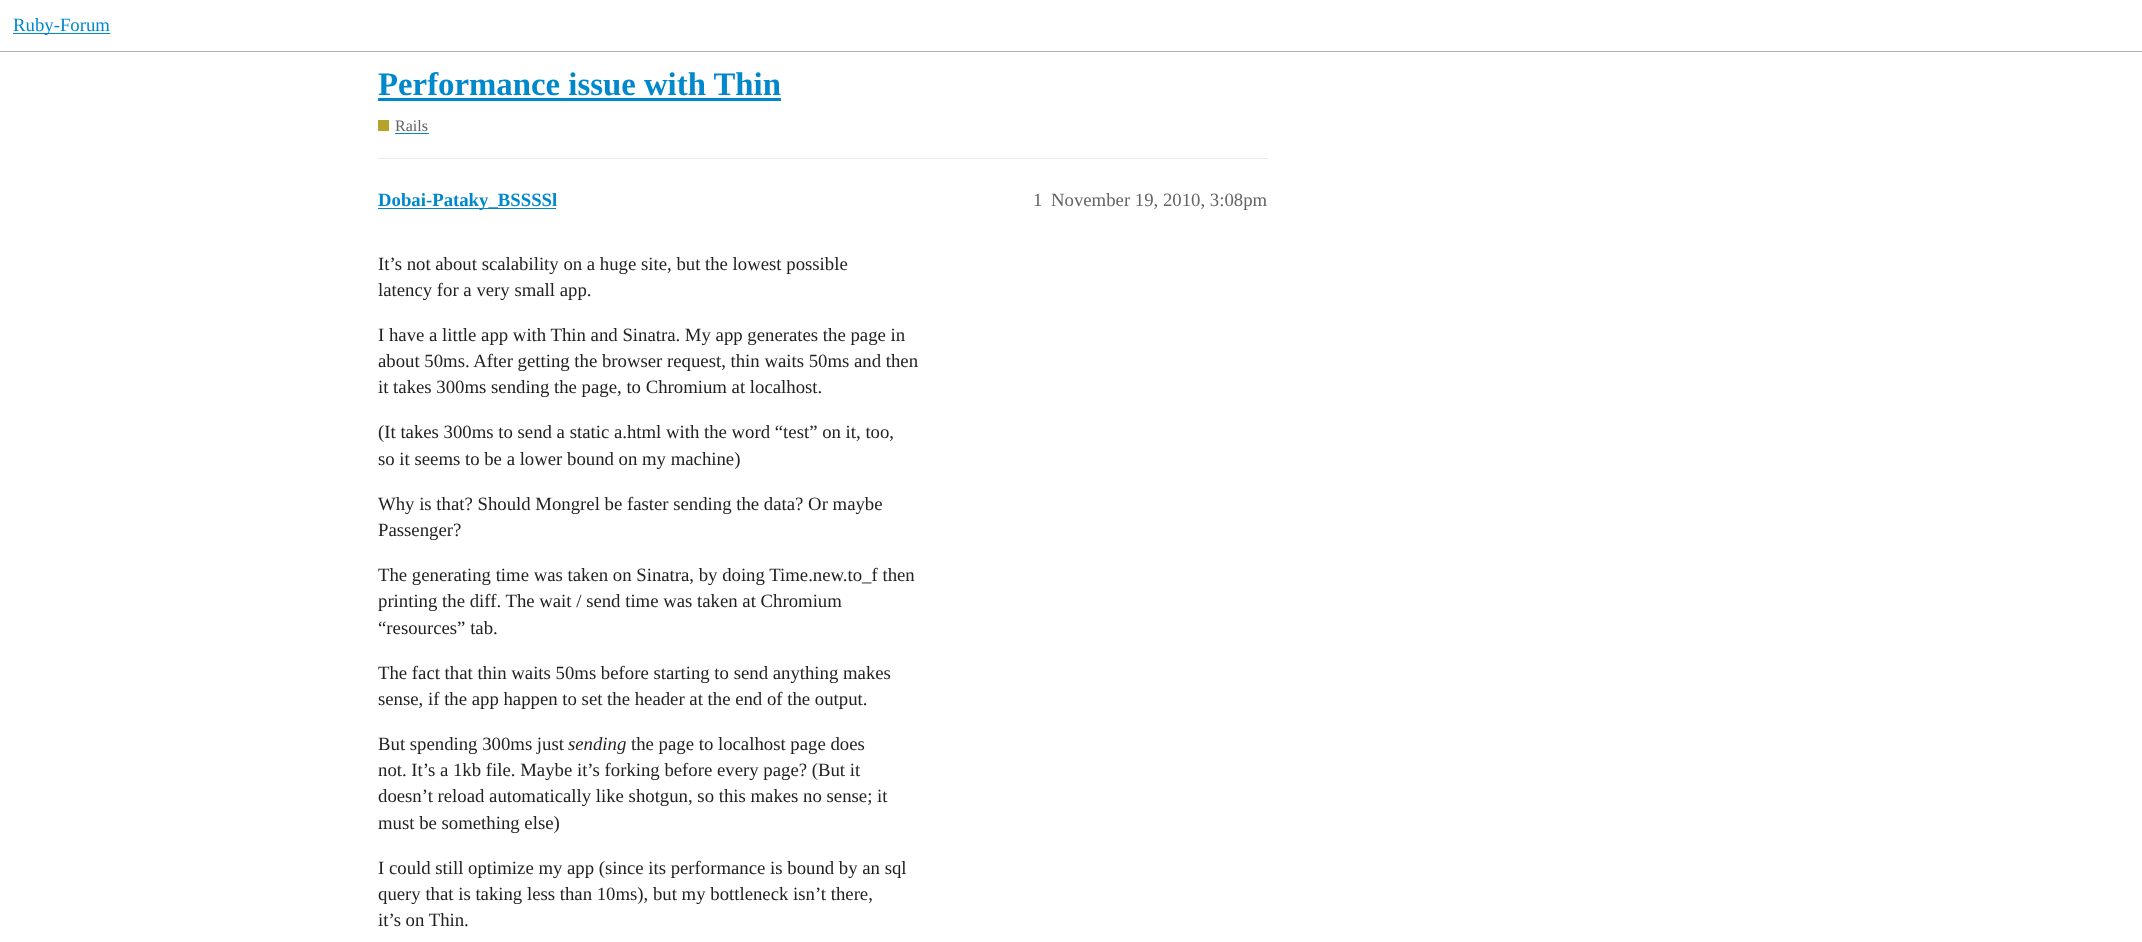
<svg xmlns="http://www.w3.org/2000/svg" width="2142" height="942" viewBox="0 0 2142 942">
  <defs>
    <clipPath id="clip1"><rect x="378" y="233" width="890" height="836"/></clipPath>
  </defs>
  <rect width="100%" height="100%" fill="#ffffff"/>
  <rect x="0" y="51" width="2142" height="1" fill="#afafaf"/>
  <rect x="13" y="33" width="97" height="1" fill="#0088cc"/>
  <text x="13" y="31" font-family="Liberation Serif" font-size="18.75" fill="#0088cc">Ruby-Forum</text>
  <text x="378" y="95" font-family="Liberation Serif" font-size="32.8" font-weight="bold" fill="#0088cc">Performance issue with Thin</text>
  <rect x="378" y="98" width="403" height="3" fill="#0088cc"/>
  <rect x="378" y="120" width="11" height="11" fill="#b8a32a"/>
  <text x="395" y="131" font-family="Liberation Serif" font-size="16" fill="#646464">Rails</text>
  <rect x="395" y="133" width="34" height="1" fill="#0088cc"/>
  <rect x="378" y="158" width="890" height="1" fill="#e9e9e9"/>
  <rect x="378" y="208" width="178" height="1" fill="#0088cc"/>
  <text x="378" y="206" font-family="Liberation Serif" font-size="18.75" font-weight="bold" fill="#0088cc">Dobai-Pataky_BSSSSl</text>
  <text x="1033" y="206" font-family="Liberation Serif" font-size="18.75" fill="#646464">1</text>
  <text x="1051" y="206" font-family="Liberation Serif" font-size="18.75" fill="#646464">November 19, 2010, 3:08pm</text>
  <text x="378" y="270" font-family="Liberation Serif" font-size="18.75" fill="#222222">It’s not about scalability on a huge site, but the lowest possible</text>
  <text x="378" y="296" font-family="Liberation Serif" font-size="18.75" fill="#222222">latency for a very small app.</text>
  <text x="378" y="341" font-family="Liberation Serif" font-size="18.75" fill="#222222">I have a little app with Thin and Sinatra. My app generates the page in</text>
  <text x="378" y="367" font-family="Liberation Serif" font-size="18.75" fill="#222222">about 50ms. After getting the browser request, thin waits 50ms and then</text>
  <text x="378" y="393" font-family="Liberation Serif" font-size="18.75" fill="#222222">it takes 300ms sending the page, to Chromium at localhost.</text>
  <text x="378" y="438" font-family="Liberation Serif" font-size="18.75" fill="#222222">(It takes 300ms to send a static a.html with the word “test” on it, too,</text>
  <text x="378" y="465" font-family="Liberation Serif" font-size="18.75" fill="#222222">so it seems to be a lower bound on my machine)</text>
  <text x="378" y="510" font-family="Liberation Serif" font-size="18.75" fill="#222222">Why is that? Should Mongrel be faster sending the data? Or maybe</text>
  <text x="378" y="536" font-family="Liberation Serif" font-size="18.75" fill="#222222">Passenger?</text>
  <g clip-path="url(#clip1)">
    <text x="378" y="581" font-family="Liberation Serif" font-size="18.75" fill="#222222">The generating time was taken on Sinatra, by doing Time.new.to_f then</text>
  </g>
  <text x="378" y="607" font-family="Liberation Serif" font-size="18.75" fill="#222222">printing the diff. The wait / send time was taken at Chromium</text>
  <text x="378" y="634" font-family="Liberation Serif" font-size="18.75" fill="#222222">“resources” tab.</text>
  <g clip-path="url(#clip1)">
    <text x="378" y="679" font-family="Liberation Serif" font-size="18.75" fill="#222222">The fact that thin waits 50ms before starting to send anything makes</text>
  </g>
  <text x="378" y="705" font-family="Liberation Serif" font-size="18.75" fill="#222222">sense, if the app happen to set the header at the end of the output.</text>
  <text x="378" y="750" font-family="Liberation Serif" font-size="18.75" fill="#222222">But spending 300ms just</text>
  <text x="568" y="750" font-family="Liberation Serif" font-size="18.75" font-style="italic" fill="#222222">sending</text>
  <text x="631" y="750" font-family="Liberation Serif" font-size="18.75" fill="#222222">the page to localhost page does</text>
  <text x="378" y="776" font-family="Liberation Serif" font-size="18.75" fill="#222222">not. It’s a 1kb file. Maybe it’s forking before every page? (But it</text>
  <text x="378" y="802" font-family="Liberation Serif" font-size="18.75" fill="#222222">doesn’t reload automatically like shotgun, so this makes no sense; it</text>
  <text x="378" y="829" font-family="Liberation Serif" font-size="18.75" fill="#222222">must be something else)</text>
  <text x="378" y="874" font-family="Liberation Serif" font-size="18.75" fill="#222222">I could still optimize my app (since its performance is bound by an sql</text>
  <text x="378" y="900" font-family="Liberation Serif" font-size="18.75" fill="#222222">query that is taking less than 10ms), but my bottleneck isn’t there,</text>
  <text x="378" y="926" font-family="Liberation Serif" font-size="18.75" fill="#222222">it’s on Thin.</text>
</svg>
